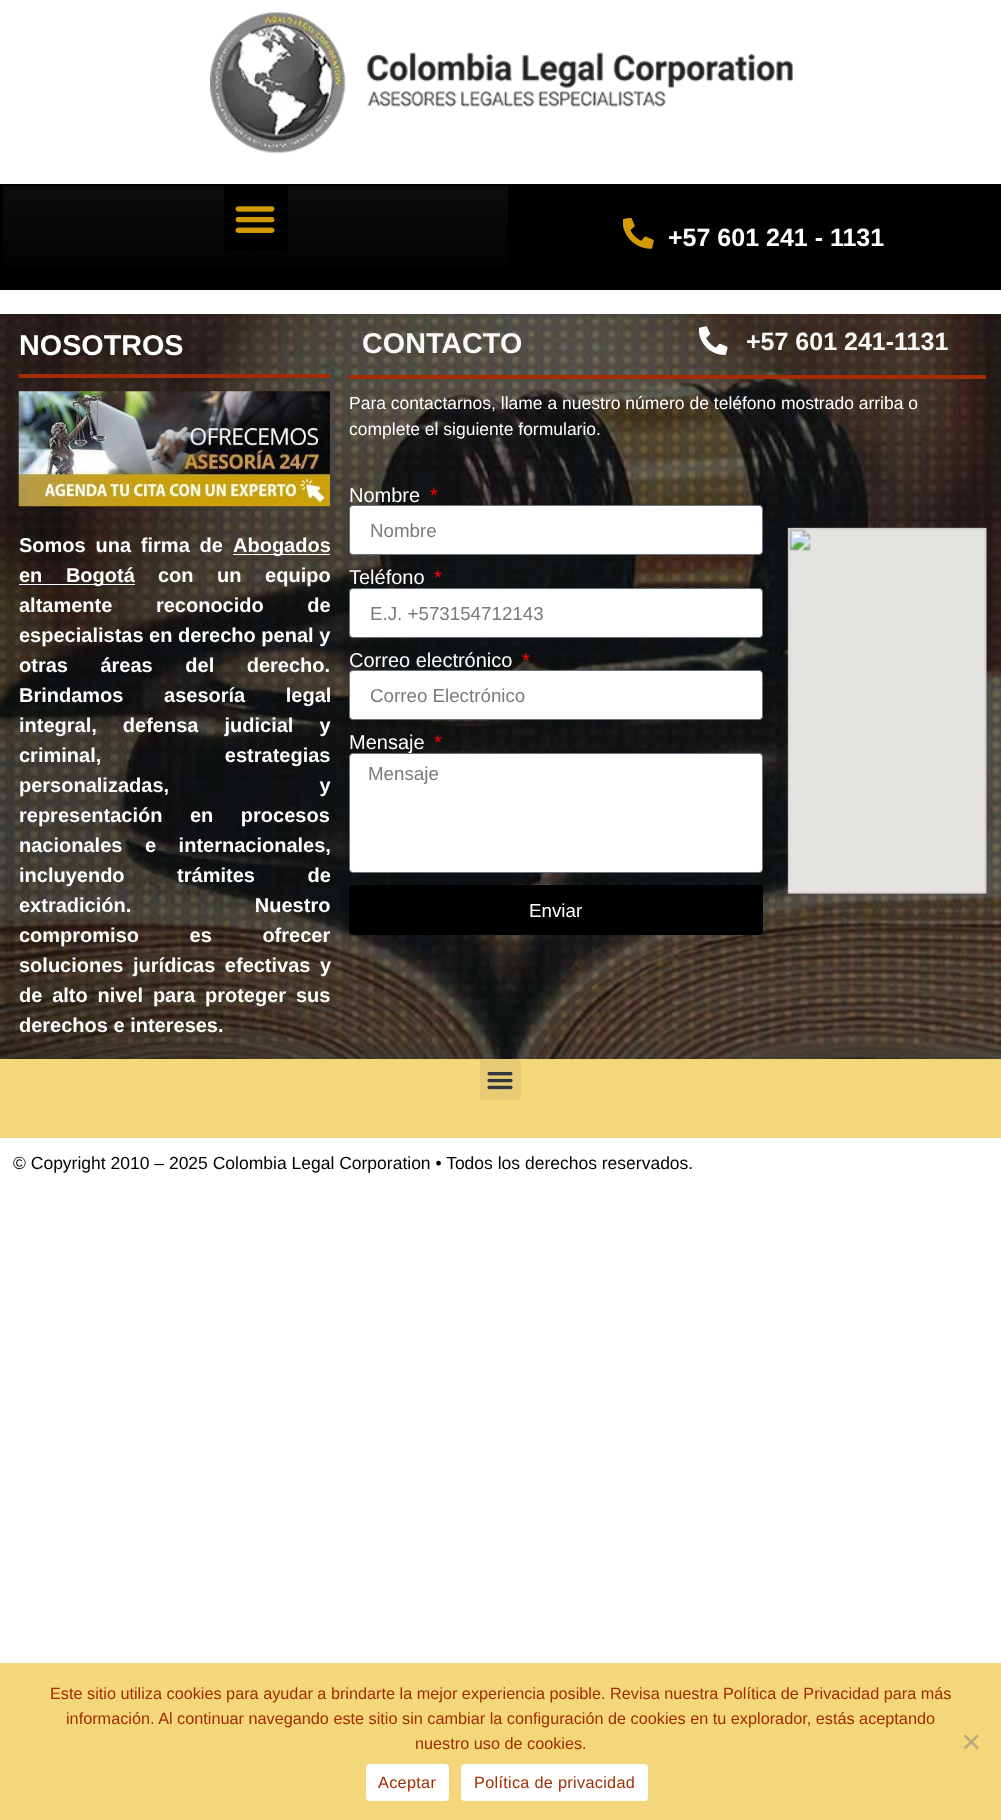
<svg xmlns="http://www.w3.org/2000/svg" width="1001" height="1820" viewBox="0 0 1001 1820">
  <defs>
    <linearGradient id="g1" gradientUnits="userSpaceOnUse" x1="255" y1="186" x2="255" y2="288"><stop offset="0" stop-color="#0c0c0c"/><stop offset="1" stop-color="#000000"/></linearGradient>
  </defs>
  <rect width="100%" height="100%" fill="#ffffff"/>
  <image x="210" y="12" width="583" height="141" href="img1.png"/>
  <rect x="0" y="184" width="1001" height="106" fill="#000000"/>
  <rect x="3" y="186" width="505" height="81" fill="url(#g1)"/>
  <rect x="224" y="186" width="64" height="64" rx="4" fill="#000000"/>
  <image x="235" y="206" width="40" height="27" href="img2.png"/>
  <image x="623" y="218" width="31" height="31" href="img3.png"/>
  <text x="668" y="246" font-family="Liberation Sans" font-size="25" font-weight="bold" fill="#ffffff">+57 601 241 - 1131</text>
  <image x="0" y="314" width="1001" height="745" href="img4.png"/>
  <text x="19" y="355" font-family="Liberation Sans" font-size="28.75" font-weight="bold" fill="#ffffff">NOSOTROS</text>
  <rect x="19" y="374" width="311" height="4" fill="#a32c00"/>
  <image x="18" y="391" width="312" height="116" href="img5.png"/>
  <text x="19" y="552" word-spacing="4.25" font-family="Liberation Sans" font-size="20" font-weight="bold" fill="#ffffff">Somos una firma de</text>
  <rect x="233" y="554" width="97" height="1" fill="#ffffff"/>
  <text x="233" y="552" font-family="Liberation Sans" font-size="20" font-weight="bold" fill="#ffffff">Abogados</text>
  <rect x="19" y="584" width="116" height="1" fill="#ffffff"/>
  <text x="19" y="582" word-spacing="18" font-family="Liberation Sans" font-size="20" font-weight="bold" fill="#ffffff">en Bogotá</text>
  <text x="158" y="582" word-spacing="18" font-family="Liberation Sans" font-size="20" font-weight="bold" fill="#ffffff">con un equipo</text>
  <text x="19" y="612" word-spacing="38" font-family="Liberation Sans" font-size="20" font-weight="bold" fill="#ffffff">altamente reconocido de</text>
  <text x="19" y="642" font-family="Liberation Sans" font-size="20" font-weight="bold" fill="#ffffff">especialistas en derecho penal y</text>
  <text x="19" y="672" word-spacing="27" font-family="Liberation Sans" font-size="20" font-weight="bold" fill="#ffffff">otras áreas del derecho.</text>
  <text x="19" y="702" word-spacing="35" font-family="Liberation Sans" font-size="20" font-weight="bold" fill="#ffffff">Brindamos asesoría legal</text>
  <text x="19" y="732" word-spacing="20.5" font-family="Liberation Sans" font-size="20" font-weight="bold" fill="#ffffff">integral, defensa judicial y</text>
  <text x="19" y="762" word-spacing="118" font-family="Liberation Sans" font-size="20" font-weight="bold" fill="#ffffff">criminal, estrategias</text>
  <text x="19" y="792" word-spacing="145" font-family="Liberation Sans" font-size="20" font-weight="bold" fill="#ffffff">personalizadas, y</text>
  <text x="19" y="822" word-spacing="22" font-family="Liberation Sans" font-size="20" font-weight="bold" fill="#ffffff">representación en procesos</text>
  <text x="19" y="852" word-spacing="17" font-family="Liberation Sans" font-size="20" font-weight="bold" fill="#ffffff">nacionales e internacionales,</text>
  <text x="19" y="882" word-spacing="47" font-family="Liberation Sans" font-size="20" font-weight="bold" fill="#ffffff">incluyendo trámites de</text>
  <text x="19" y="912" word-spacing="118" font-family="Liberation Sans" font-size="20" font-weight="bold" fill="#ffffff">extradición. Nuestro</text>
  <text x="19" y="942" word-spacing="45" font-family="Liberation Sans" font-size="20" font-weight="bold" fill="#ffffff">compromiso es ofrecer</text>
  <text x="19" y="972" word-spacing="4" font-family="Liberation Sans" font-size="20" font-weight="bold" fill="#ffffff">soluciones jurídicas efectivas y</text>
  <text x="19" y="1002" word-spacing="4.25" font-family="Liberation Sans" font-size="20" font-weight="bold" fill="#ffffff">de alto nivel para proteger sus</text>
  <text x="19" y="1032" font-family="Liberation Sans" font-size="20" font-weight="bold" fill="#ffffff">derechos e intereses.</text>
  <text x="362" y="353" font-family="Liberation Sans" font-size="28.75" font-weight="bold" fill="#f8f8f8">CONTACTO</text>
  <image x="699" y="326" width="29" height="29" href="img6.png"/>
  <text x="746" y="350" font-family="Liberation Sans" font-size="25" font-weight="bold" fill="#f8f8f8">+57 601 241-1131</text>
  <rect x="349" y="375" width="637" height="4" fill="#a32c00"/>
  <text x="349" y="409" font-family="Liberation Sans" font-size="17.5" fill="#ffffff">Para contactarnos, llame a nuestro número de teléfono mostrado arriba o</text>
  <text x="349" y="435" font-family="Liberation Sans" font-size="17.5" fill="#ffffff">complete el siguiente formulario.</text>
  <text x="349" y="502" font-family="Liberation Sans" font-size="20" fill="#ffffff">Nombre</text>
  <text x="430" y="502" font-family="Liberation Sans" font-size="20" fill="#ff0000">*</text>
  <rect x="349.5" y="505.5" width="413" height="49" rx="3.5" fill="#ffffff" stroke="#69727d"/>
  <text x="370" y="537" font-family="Liberation Sans" font-size="18.75" fill="#797a7c">Nombre</text>
  <text x="349" y="584" font-family="Liberation Sans" font-size="20" fill="#ffffff">Teléfono</text>
  <text x="434" y="584" font-family="Liberation Sans" font-size="20" fill="#ff0000">*</text>
  <rect x="349.5" y="588.5" width="413" height="49" rx="3.5" fill="#ffffff" stroke="#69727d"/>
  <text x="370" y="620" font-family="Liberation Sans" font-size="18.75" fill="#797a7c">E.J. +573154712143</text>
  <text x="349" y="667" font-family="Liberation Sans" font-size="20" fill="#ffffff">Correo electrónico</text>
  <text x="522" y="667" font-family="Liberation Sans" font-size="20" fill="#ff0000">*</text>
  <rect x="349.5" y="670.5" width="413" height="49" rx="3.5" fill="#ffffff" stroke="#69727d"/>
  <text x="370" y="702" font-family="Liberation Sans" font-size="18.75" fill="#797a7c">Correo Electrónico</text>
  <text x="349" y="749" font-family="Liberation Sans" font-size="20" fill="#ffffff">Mensaje</text>
  <text x="434" y="749" font-family="Liberation Sans" font-size="20" fill="#ff0000">*</text>
  <rect x="349.5" y="753.5" width="413" height="119" rx="3.5" fill="#ffffff" stroke="#69727d"/>
  <text x="368" y="780" font-family="Liberation Sans" font-size="18.75" fill="#797a7c">Mensaje</text>
  <rect x="349" y="885" width="414" height="50" rx="4" fill="#000000"/>
  <text x="529" y="917" font-family="Liberation Sans" font-size="18.75" fill="#ffffff">Enviar</text>
  <image x="787" y="527" width="200" height="367" href="img7.png"/>
  <rect x="0" y="1059" width="1001" height="79" fill="#f4d77b"/>
  <rect x="480" y="1059" width="41" height="41" rx="4" fill="#e8cc75"/>
  <image x="487" y="1072" width="26" height="18" href="img8.png"/>
  <text x="13" y="1169" font-family="Liberation Sans" font-size="17.5" fill="#000000">© Copyright 2010 – 2025 Colombia Legal Corporation • Todos los derechos reservados.</text>
  <rect x="0" y="1663" width="1001" height="157" fill="#f4d77b"/>
  <text x="50" y="1699" font-family="Liberation Sans" font-size="16.25" fill="#a32c00">Este sitio utiliza cookies para ayudar a brindarte la mejor experiencia posible. Revisa nuestra Política de Privacidad para más</text>
  <text x="66" y="1724" font-family="Liberation Sans" font-size="16.25" fill="#a32c00">información. Al continuar navegando este sitio sin cambiar la configuración de cookies en tu explorador, estás aceptando</text>
  <text x="415" y="1749" font-family="Liberation Sans" font-size="16.25" fill="#a32c00">nuestro uso de cookies.</text>
  <path d="M977 1734.5L979 1736L965.5 1749.5L963.5 1747.5Z" fill="#baac7e"/>
  <path d="M963.5 1736L965.5 1734.5L979 1747.5L977 1749.5Z" fill="#baac7e"/>
  <rect x="366" y="1764" width="83" height="37" rx="4" fill="#ffffff"/>
  <text x="378" y="1788" font-family="Liberation Sans" font-size="16.25" letter-spacing="0.3" fill="#a32c00">Aceptar</text>
  <rect x="461" y="1764" width="187" height="37" rx="4" fill="#ffffff"/>
  <text x="474" y="1788" font-family="Liberation Sans" font-size="16.25" letter-spacing="0.3" fill="#a32c00">Política de privacidad</text>
</svg>
